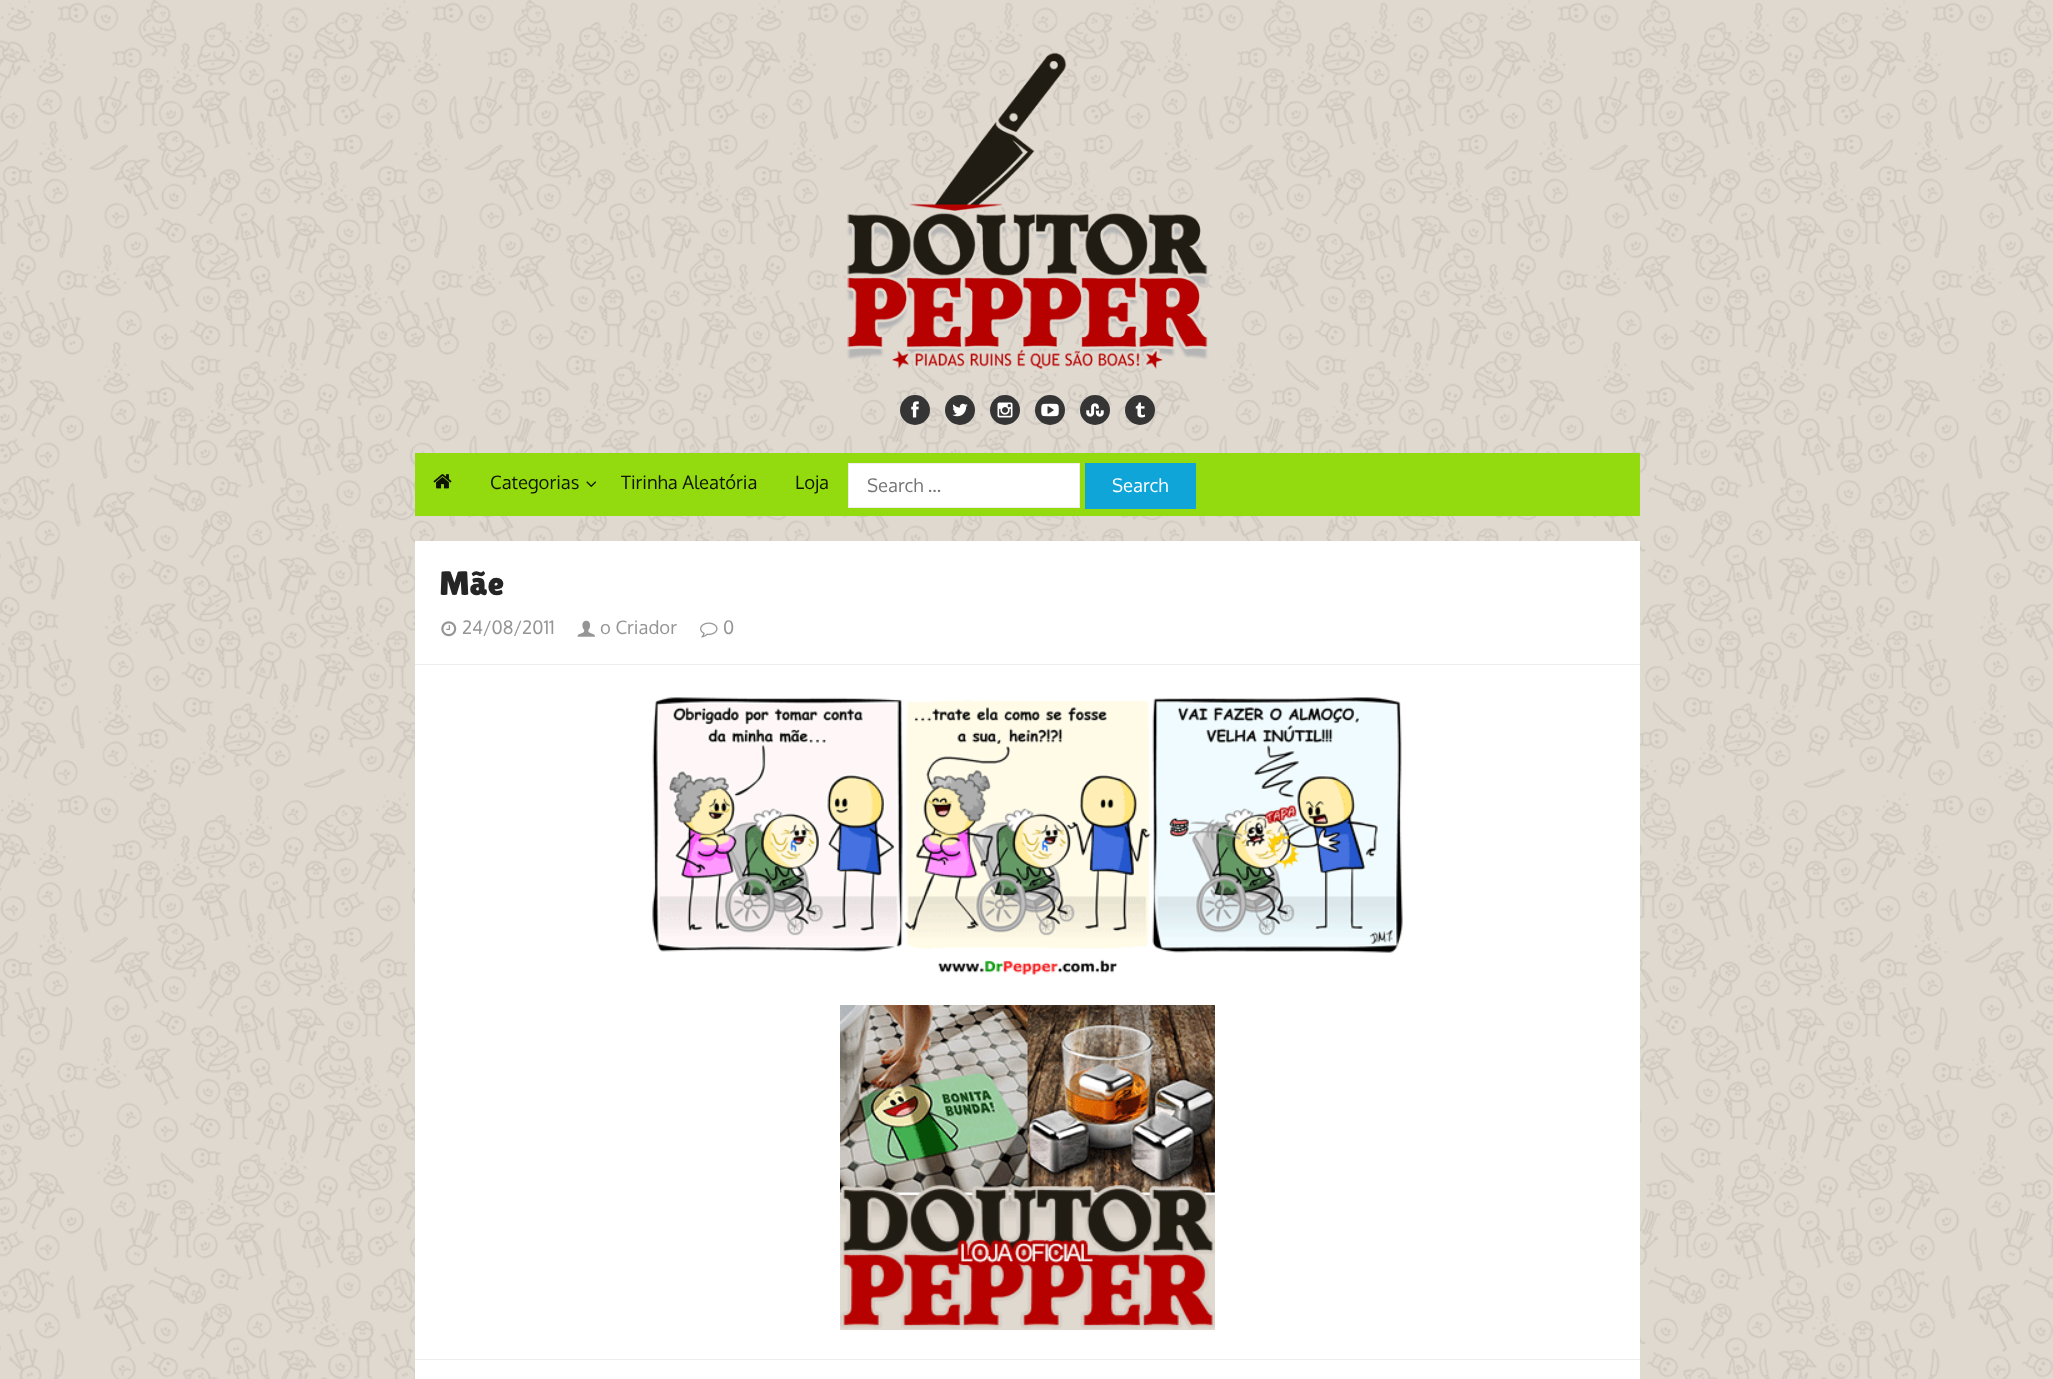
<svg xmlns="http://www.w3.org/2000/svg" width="2053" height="1379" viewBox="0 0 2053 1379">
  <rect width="100%" height="100%" fill="#e0d9d0"/>
  <image x="0" y="0" width="2053" height="1379" href="img1.png"/>
  <image x="845" y="51" width="364" height="319" href="img2.png"/>
  <circle cx="915" cy="410" r="15" fill="#353535"/>
  <image x="911" y="401" width="8" height="17" href="img3.png"/>
  <circle cx="960" cy="410" r="15" fill="#353535"/>
  <image x="952" y="403" width="16" height="14" href="img4.png"/>
  <circle cx="1005" cy="410" r="15" fill="#353535"/>
  <image x="997" y="402" width="16" height="16" href="img5.png"/>
  <circle cx="1050" cy="410" r="15" fill="#353535"/>
  <image x="1041" y="403" width="18" height="14" href="img6.png"/>
  <circle cx="1095" cy="410" r="15" fill="#353535"/>
  <image x="1086" y="403" width="18" height="14" href="img7.png"/>
  <circle cx="1140" cy="410" r="15" fill="#353535"/>
  <image x="1135" y="402" width="10" height="16" href="img8.png"/>
  <rect x="415" y="453" width="1225" height="63" fill="#93db0f"/>
  <image x="433" y="474" width="19" height="15" href="img9.png"/>
  <text x="490" y="489" font-family="Oxygen" font-size="18.5" fill="#0f1602">Categorias</text>
  <image x="586" y="481" width="11" height="6" href="img10.png"/>
  <text x="621" y="489" font-family="Oxygen" font-size="18.5" fill="#0f1602">Tirinha Aleatória</text>
  <text x="795" y="489" font-family="Oxygen" font-size="18.5" fill="#0f1602">Loja</text>
  <rect x="848.5" y="463.5" width="231" height="44" fill="#ffffff" stroke="#ededed"/>
  <text x="867" y="492" font-family="Oxygen" font-size="18.5" fill="#757575">Search …</text>
  <rect x="1085" y="463" width="111" height="46" fill="#0fa5d9"/>
  <text x="1112" y="492" font-family="Oxygen" font-size="18.5" fill="#ffffff">Search</text>
  <rect x="415" y="541" width="1225" height="838" fill="#ffffff"/>
  <rect x="415" y="664" width="1225" height="1" fill="#ededed"/>
  <text x="439" y="595" font-family="Lilita One" font-size="34" fill="#252525">Mãe</text>
  <image x="441" y="621" width="16" height="16" href="img11.png"/>
  <text x="462" y="634" font-family="Oxygen" font-size="18.5" fill="#959595">24/08/2011</text>
  <image x="577" y="620" width="18" height="17" href="img12.png"/>
  <text x="600" y="634" font-family="Oxygen" font-size="18.5" fill="#959595">o Criador</text>
  <image x="700" y="622" width="18" height="16" href="img13.png"/>
  <text x="723" y="634" font-family="Oxygen" font-size="18.5" fill="#959595">0</text>
  <image x="652" y="697" width="751" height="278" href="img14.png"/>
  <image x="840" y="1005" width="375" height="325" href="img15.png"/>
  <rect x="415" y="1359" width="1225" height="1" fill="#ededed"/>
</svg>
